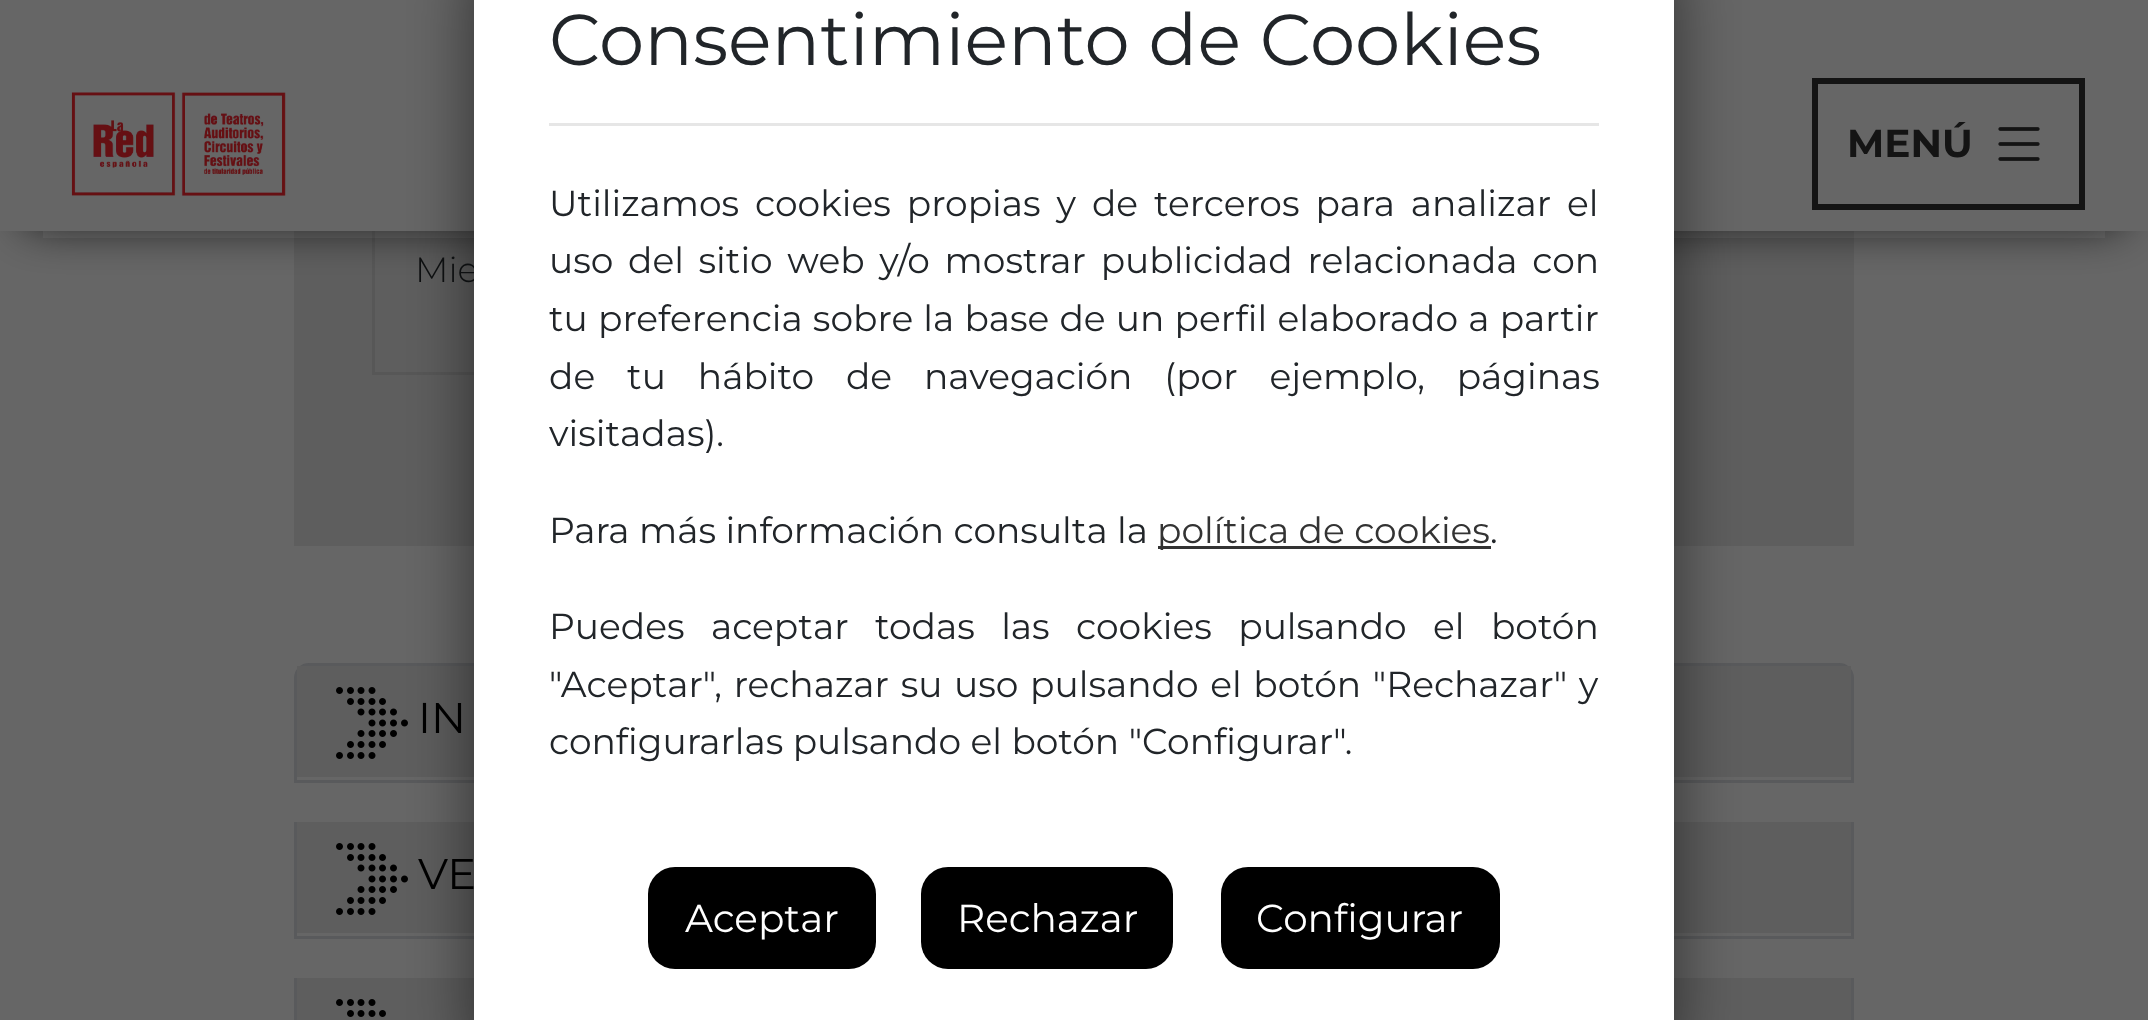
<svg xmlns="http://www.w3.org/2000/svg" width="2148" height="1020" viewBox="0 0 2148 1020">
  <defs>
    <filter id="blur1" x="-50%" y="-200%" width="200%" height="500%"><feGaussianBlur stdDeviation="24"/></filter>
    <filter id="blur2" x="-50%" y="-200%" width="200%" height="500%"><feGaussianBlur stdDeviation="33"/></filter>
  </defs>
  <rect width="100%" height="100%" fill="#666666"/>
  <rect x="294" y="231" width="1560" height="315" fill="#5e5e5e"/>
  <rect x="373.5" y="226.5" width="750" height="147" fill="none" stroke="#575757" stroke-width="3"/>
  <rect x="27" y="45" width="2094" height="177" fill="#141414" filter="url(#blur1)"/>
  <rect x="0" y="0" width="2148" height="231" fill="#666666"/>
  <path d="M309 664.5H1839C1846.5 664.5 1852.5 670.5 1852.5 678V781.5H295.5V678C295.5 670.5 301.5 664.5 309 664.5Z" fill="none" stroke="#595a5c" stroke-width="3"/>
  <rect x="297" y="666" width="1554" height="111" fill="#5e5e5e"/>
  <image x="336" y="687" width="72" height="72" href="img3.png"/>
  <rect x="297" y="822" width="1554" height="111" fill="#5e5e5e"/>
  <rect x="1851" y="822" width="3" height="117" fill="#595a5c"/>
  <rect x="294" y="936" width="1560" height="3" fill="#595a5c"/>
  <image x="336" y="843" width="72" height="72" href="img3.png"/>
  <rect x="297" y="978" width="1554" height="42" fill="#5e5e5e"/>
  <image x="336" y="999" width="50" height="18" href="img4.png"/>
  <rect x="474" y="-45" width="1200" height="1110" rx="27" fill="#000000" fill-opacity="0.54" filter="url(#blur2)"/>
  <text x="415" y="282" font-family="Montserrat" font-size="35" font-weight="100" fill="#0d0f10">Mie</text>
  <rect x="474" y="0" width="1200" height="1020" fill="#ffffff"/>
  <rect x="549" y="123" width="1050" height="3" fill="#e6e6e6"/>
  <text x="549" y="65" font-family="'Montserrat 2'" font-size="72" font-weight="100" fill="#212529">Consentimiento de Cookies</text>
  <text x="549" y="216" word-spacing="6.5" font-family="'Montserrat 2'" font-size="36" font-weight="100" fill="#212529">Utilizamos cookies propias y de terceros para analizar el</text>
  <text x="549" y="273" word-spacing="5.25" font-family="'Montserrat 2'" font-size="36" font-weight="100" fill="#212529">uso del sitio web y/o mostrar publicidad relacionada con</text>
  <text x="549" y="331" word-spacing="0.75" font-family="'Montserrat 2'" font-size="36" font-weight="100" fill="#212529">tu preferencia sobre la base de un perfil elaborado a partir</text>
  <text x="549" y="389" word-spacing="22.5" font-family="'Montserrat 2'" font-size="36" font-weight="100" fill="#212529">de tu hábito de navegación (por ejemplo, páginas</text>
  <text x="549" y="446" font-family="'Montserrat 2'" font-size="36" font-weight="100" fill="#212529">visitadas).</text>
  <text x="549" y="543" font-family="'Montserrat 2'" font-size="36" font-weight="100" fill="#212529">Para más información consulta la</text>
  <rect x="1158" y="546" width="333" height="3" fill="#333333"/>
  <text x="1157" y="543" font-family="'Montserrat 2'" font-size="36" font-weight="100" fill="#333333">política de cookies</text>
  <text x="1490" y="543" font-family="'Montserrat 2'" font-size="36" font-weight="100" fill="#212529">.</text>
  <text x="549" y="639" word-spacing="17" font-family="'Montserrat 2'" font-size="36" font-weight="100" fill="#212529">Puedes aceptar todas las cookies pulsando el botón</text>
  <text x="549" y="697" word-spacing="2.25" font-family="'Montserrat 2'" font-size="36" font-weight="100" fill="#212529">"Aceptar", rechazar su uso pulsando el botón "Rechazar" y</text>
  <text x="549" y="754" font-family="'Montserrat 2'" font-size="36" font-weight="100" fill="#212529">configurarlas pulsando el botón "Configurar".</text>
  <rect x="648" y="867" width="228" height="102" rx="27" fill="#000000"/>
  <text x="685" y="932" font-family="'Montserrat 2'" font-size="39" font-weight="100" fill="#ffffff">Aceptar</text>
  <rect x="921" y="867" width="252" height="102" rx="27" fill="#000000"/>
  <text x="957" y="932" font-family="'Montserrat 2'" font-size="39" font-weight="100" fill="#ffffff">Rechazar</text>
  <rect x="1221" y="867" width="279" height="102" rx="27" fill="#000000"/>
  <text x="1256" y="932" font-family="'Montserrat 2'" font-size="39" font-weight="100" fill="#ffffff">Configurar</text>
  <image x="71" y="92" width="215" height="104" href="img1.png"/>
  <rect x="1815" y="81" width="267" height="126" fill="none" stroke="#141414" stroke-width="6"/>
  <text x="1847" y="157" font-family="'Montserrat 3'" font-size="39" font-weight="100" fill="#141414">MENÚ</text>
  <image x="1998" y="127" width="42" height="34" href="img2.png"/>
  <text x="418" y="733" font-family="'Montserrat 2'" font-size="43" font-weight="100" fill="#000000">IN</text>
  <rect x="294" y="822" width="3" height="117" fill="#595a5c"/>
  <text x="418" y="889" font-family="'Montserrat 2'" font-size="43" font-weight="100" fill="#000000">VE</text>
  <rect x="1851" y="978" width="3" height="42" fill="#595a5c"/>
  <rect x="294" y="978" width="3" height="42" fill="#595a5c"/>
</svg>
